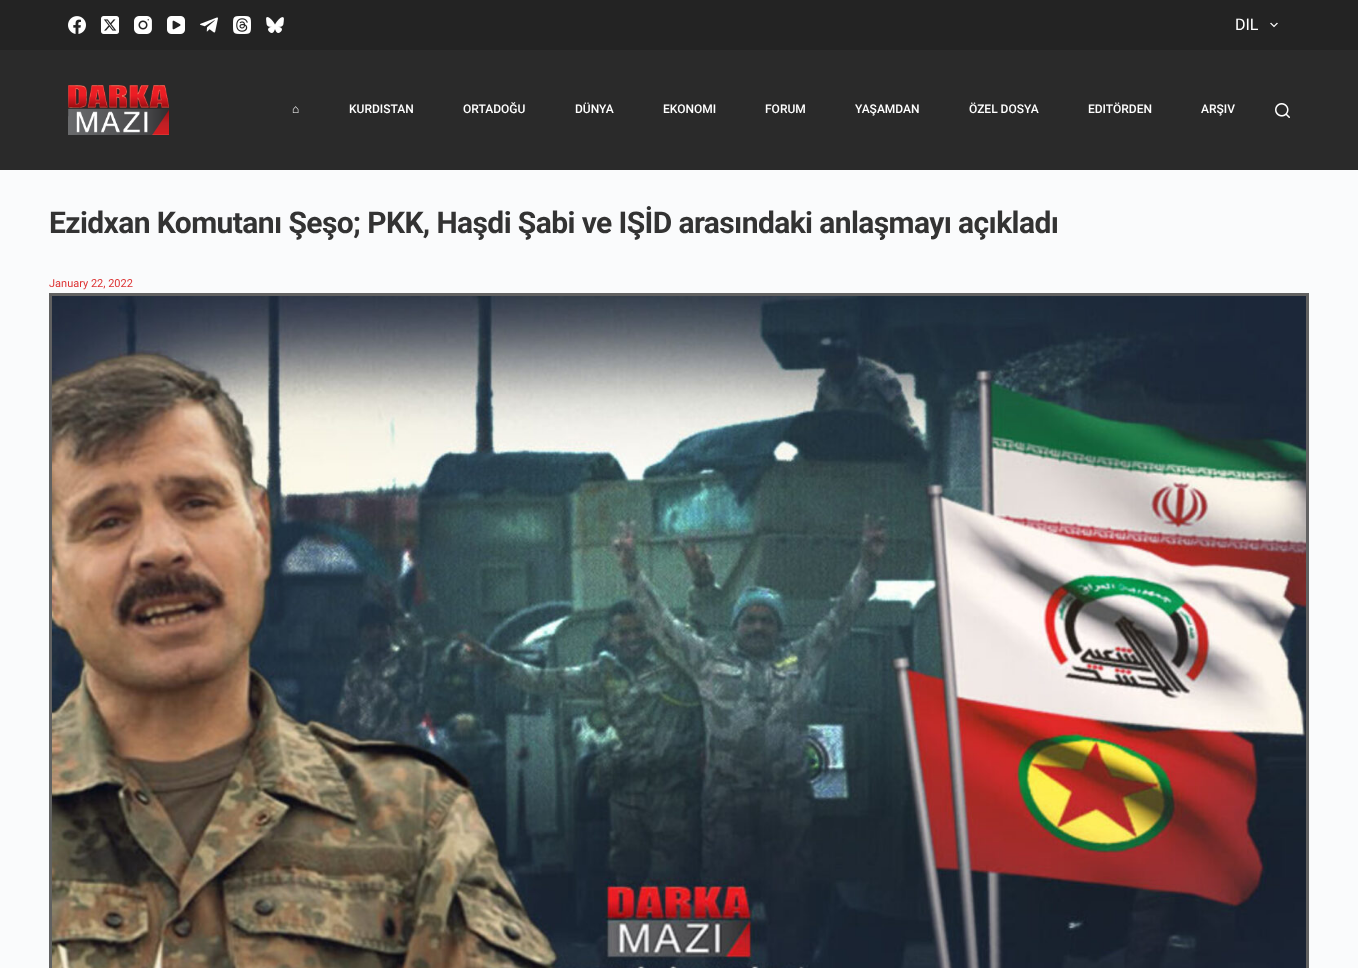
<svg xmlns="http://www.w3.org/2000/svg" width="1358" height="968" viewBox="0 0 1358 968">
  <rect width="100%" height="100%" fill="#fafbfc"/>
  <rect x="0" y="0" width="1358" height="50" fill="#232323"/>
  <image x="68" y="16" width="18" height="18" href="img1.png"/>
  <image x="101" y="16" width="18" height="18" href="img2.png"/>
  <image x="134" y="16" width="18" height="18" href="img3.png"/>
  <image x="167" y="16" width="18" height="18" href="img4.png"/>
  <image x="200" y="17" width="18" height="16" href="img5.png"/>
  <image x="233" y="16" width="18" height="18" href="img6.png"/>
  <image x="266" y="17" width="18" height="16" href="img7.png"/>
  <text x="1235" y="30" font-family="Roboto" font-size="16" fill="#ffffff">DIL</text>
  <image x="1270" y="22" width="8" height="6" href="img8.png"/>
  <rect x="0" y="50" width="1358" height="120" fill="#2a2a2a"/>
  <image x="68" y="85" width="101" height="50" href="img9.png"/>
  <text x="292" y="113" font-family="Liberation Sans" font-size="12" fill="#ffffff">⌂</text>
  <text x="349" y="113" font-family="Roboto" font-size="12" font-weight="500" fill="#ffffff">KURDISTAN</text>
  <text x="463" y="113" font-family="Roboto" font-size="12" font-weight="500" fill="#ffffff">ORTADOĞU</text>
  <text x="575" y="113" font-family="Roboto" font-size="12" font-weight="500" fill="#ffffff">DÜNYA</text>
  <text x="663" y="113" font-family="Roboto" font-size="12" font-weight="500" fill="#ffffff">EKONOMI</text>
  <text x="765" y="113" font-family="Roboto" font-size="12" font-weight="500" fill="#ffffff">FORUM</text>
  <text x="855" y="113" font-family="Roboto" font-size="12" font-weight="500" fill="#ffffff">YAŞAMDAN</text>
  <text x="969" y="113" font-family="Roboto" font-size="12" font-weight="500" fill="#ffffff">ÖZEL DOSYA</text>
  <text x="1088" y="113" font-family="Roboto" font-size="12" font-weight="500" fill="#ffffff">EDITÖRDEN</text>
  <text x="1201" y="113" font-family="Roboto" font-size="12" font-weight="500" fill="#ffffff">ARŞIV</text>
  <image x="1275" y="103" width="15" height="15" href="img10.png"/>
  <text x="49" y="233" font-family="Roboto" font-size="30" font-weight="bold" letter-spacing="-0.6" fill="#333333">Ezidxan Komutanı Şeşo; PKK, Haşdi Şabi ve IŞİD arasındaki anlaşmayı açıkladı</text>
  <text x="49" y="287" font-family="Roboto" font-size="11" fill="#dd3333">January 22, 2022</text>
  <rect x="50.5" y="294.5" width="1257" height="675" fill="none" stroke="#616161" stroke-width="3"/>
  <image x="52" y="296" width="1254" height="672" href="img11.png"/>
</svg>
